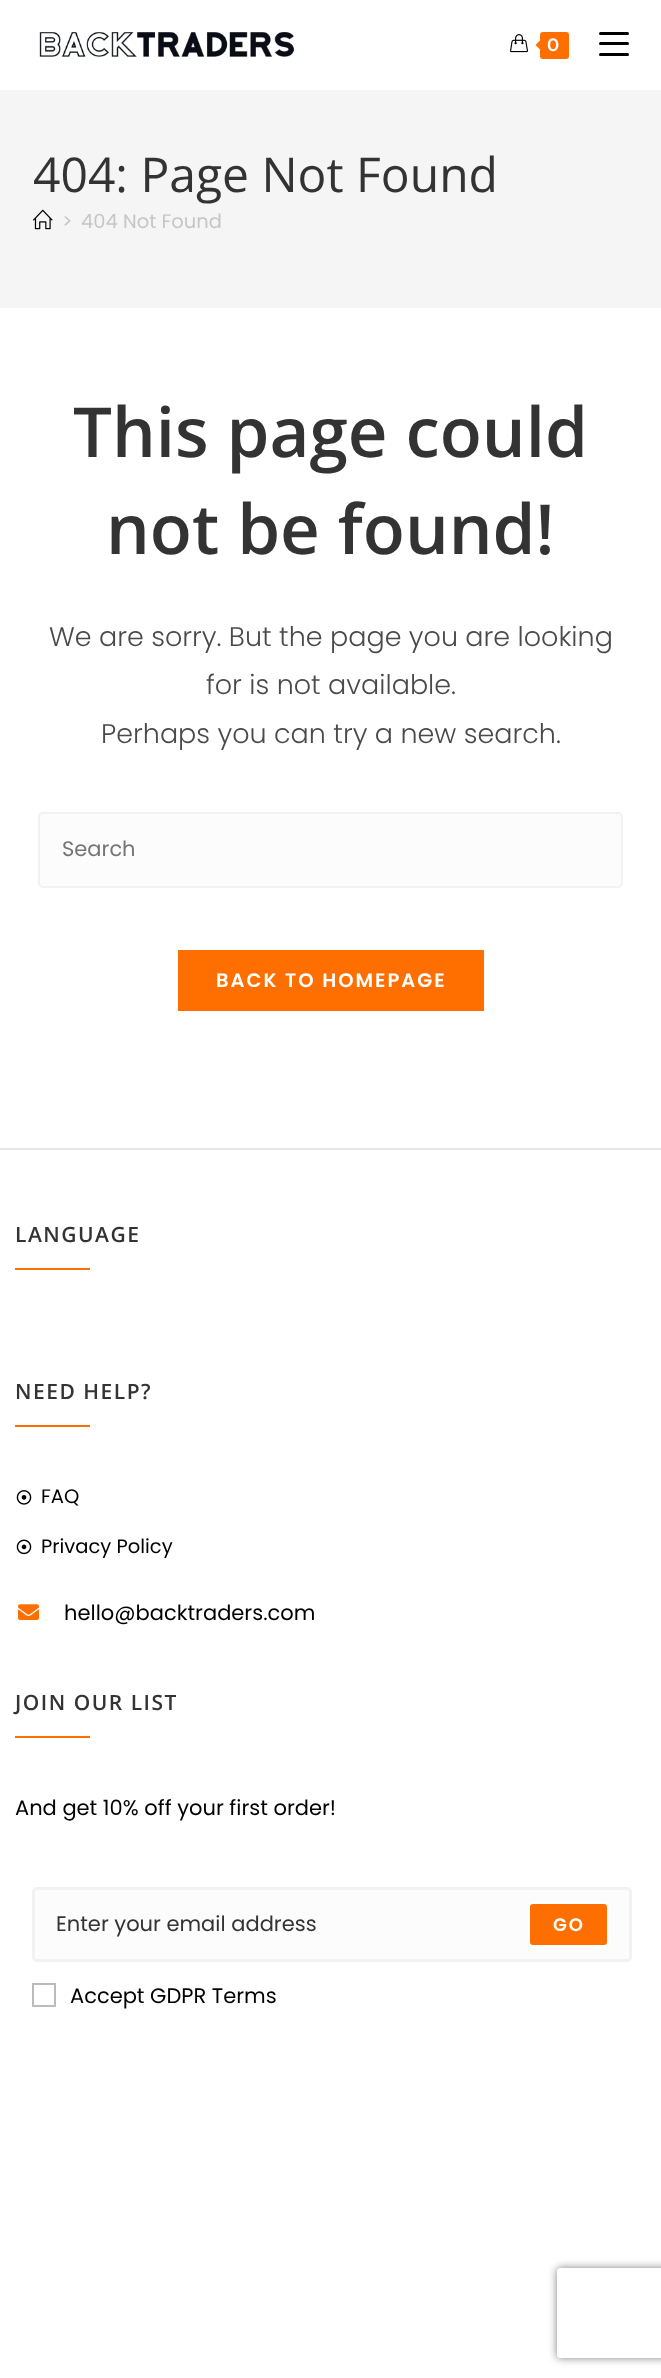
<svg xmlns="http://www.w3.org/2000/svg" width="661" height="2378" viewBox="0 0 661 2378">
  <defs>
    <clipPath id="clip1"><path d="M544 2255H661V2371H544ZM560 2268H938C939.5 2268 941 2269.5 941 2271V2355C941 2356.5 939.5 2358 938 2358H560C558.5 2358 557 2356.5 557 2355V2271C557 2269.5 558.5 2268 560 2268Z" clip-rule="evenodd"/></clipPath>
    <filter id="blur1" x="-50%" y="-200%" width="200%" height="500%"><feGaussianBlur stdDeviation="4"/></filter>
  </defs>
  <rect width="100%" height="100%" fill="#ffffff"/>
  <image x="39" y="32" width="255" height="25" href="img1.png"/>
  <image x="510" y="34" width="18" height="19" href="img2.png"/>
  <rect x="540" y="32" width="29" height="27" rx="3" fill="#ff6f00"/>
  <path d="M543 37.5V52.5L535.5 45Z" fill="#ff6f00"/>
  <text x="547" y="51" font-family="Montserrat" font-size="18" font-weight="600" letter-spacing="2" fill="#ffffff">0</text>
  <rect x="599" y="53" width="30" height="3" rx="1.5" fill="#000000"/>
  <rect x="599" y="32" width="30" height="3" rx="1.5" fill="#000000"/>
  <rect x="599" y="42" width="30" height="3" rx="1.5" fill="#000000"/>
  <rect x="0" y="90" width="661" height="218" fill="#f5f5f5"/>
  <text x="33" y="192" font-family="Open Sans" font-size="48" fill="#333333">404: Page Not Found</text>
  <image x="33" y="209" width="20" height="21" href="img3.png"/>
  <text x="62" y="228" font-family="Poppins" font-size="19.5" fill="#c6c6c6">&gt;</text>
  <text x="81" y="228" font-family="Poppins" font-size="19.5" fill="#c6c6c6">404 Not Found</text>
  <text x="73" y="457" font-family="Open Sans" font-size="69" font-weight="600" fill="#333333">This page could</text>
  <text x="106" y="554" font-family="Open Sans" font-size="69" font-weight="600" fill="#333333">not be found!</text>
  <text x="49" y="646" font-family="Poppins" font-size="27" font-weight="300" fill="#4a4a4a">We are sorry. But the page you are looking</text>
  <text x="206" y="694" font-family="Poppins" font-size="27" font-weight="300" fill="#4a4a4a">for is not available.</text>
  <text x="101" y="743" font-family="Poppins" font-size="27" font-weight="300" fill="#4a4a4a">Perhaps you can try a new search.</text>
  <rect x="39" y="813" width="583" height="74" rx="4" fill="#fcfcfc" stroke="#f2f2f2" stroke-width="2"/>
  <text x="62" y="856" font-family="Poppins" font-size="21" fill="#757575">Search</text>
  <rect x="178" y="950" width="306" height="61" fill="#ff6f00"/>
  <text x="216" y="987" font-family="Poppins" font-size="19.5" font-weight="600" letter-spacing="2" fill="#ffffff">BACK TO HOMEPAGE</text>
  <rect x="0" y="1148" width="661" height="2" fill="#e6e6e6"/>
  <text x="15" y="1242" font-family="Open Sans" font-size="21" font-weight="600" letter-spacing="1.5" fill="#333333">LANGUAGE</text>
  <rect x="15" y="1268" width="75" height="2" fill="#ff6f00"/>
  <text x="15" y="1399" font-family="Open Sans" font-size="21" font-weight="600" letter-spacing="1.5" fill="#333333">NEED HELP?</text>
  <rect x="15" y="1425" width="75" height="2" fill="#ff6f00"/>
  <image x="16" y="1490" width="16" height="15" href="img4.png"/>
  <text x="41" y="1503" font-family="Poppins" font-size="19.5" fill="#000000">FAQ</text>
  <image x="16" y="1539" width="16" height="16" href="img5.png"/>
  <text x="41" y="1553" font-family="Poppins" font-size="19.5" fill="#000000">Privacy Policy</text>
  <image x="18" y="1604" width="21" height="16" href="img6.png"/>
  <text x="64" y="1620" font-family="Poppins" font-size="21" fill="#000000">hello@backtraders.com</text>
  <text x="15" y="1710" font-family="Open Sans" font-size="21" font-weight="600" letter-spacing="1.5" fill="#333333">JOIN OUR LIST</text>
  <rect x="15" y="1736" width="75" height="2" fill="#ff6f00"/>
  <text x="15" y="1815" font-family="Poppins" font-size="21" fill="#000000">And get 10% off your first order!</text>
  <rect x="33.5" y="1888.5" width="597" height="72" rx="3.5" fill="#fcfcfc" stroke="#f2f2f2" stroke-width="3"/>
  <text x="56" y="1931" font-family="Poppins" font-size="21" fill="#333333">Enter your email address</text>
  <rect x="529" y="1903" width="79" height="43" rx="4" fill="#ff6f00" stroke="#ffffff" stroke-width="2"/>
  <text x="553" y="1931" font-family="Poppins" font-size="18" font-weight="600" letter-spacing="2" fill="#ffffff">GO</text>
  <rect x="33" y="1984" width="22" height="22" fill="none" stroke="#bbbbbb" stroke-width="2"/>
  <text x="70" y="2003" font-family="Poppins" font-size="21" fill="#000000">Accept GDPR Terms</text>
  <g clip-path="url(#clip1)">
    <rect x="557" y="2268" width="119" height="90" rx="3" fill="#808080" filter="url(#blur1)"/>
  </g>
</svg>
